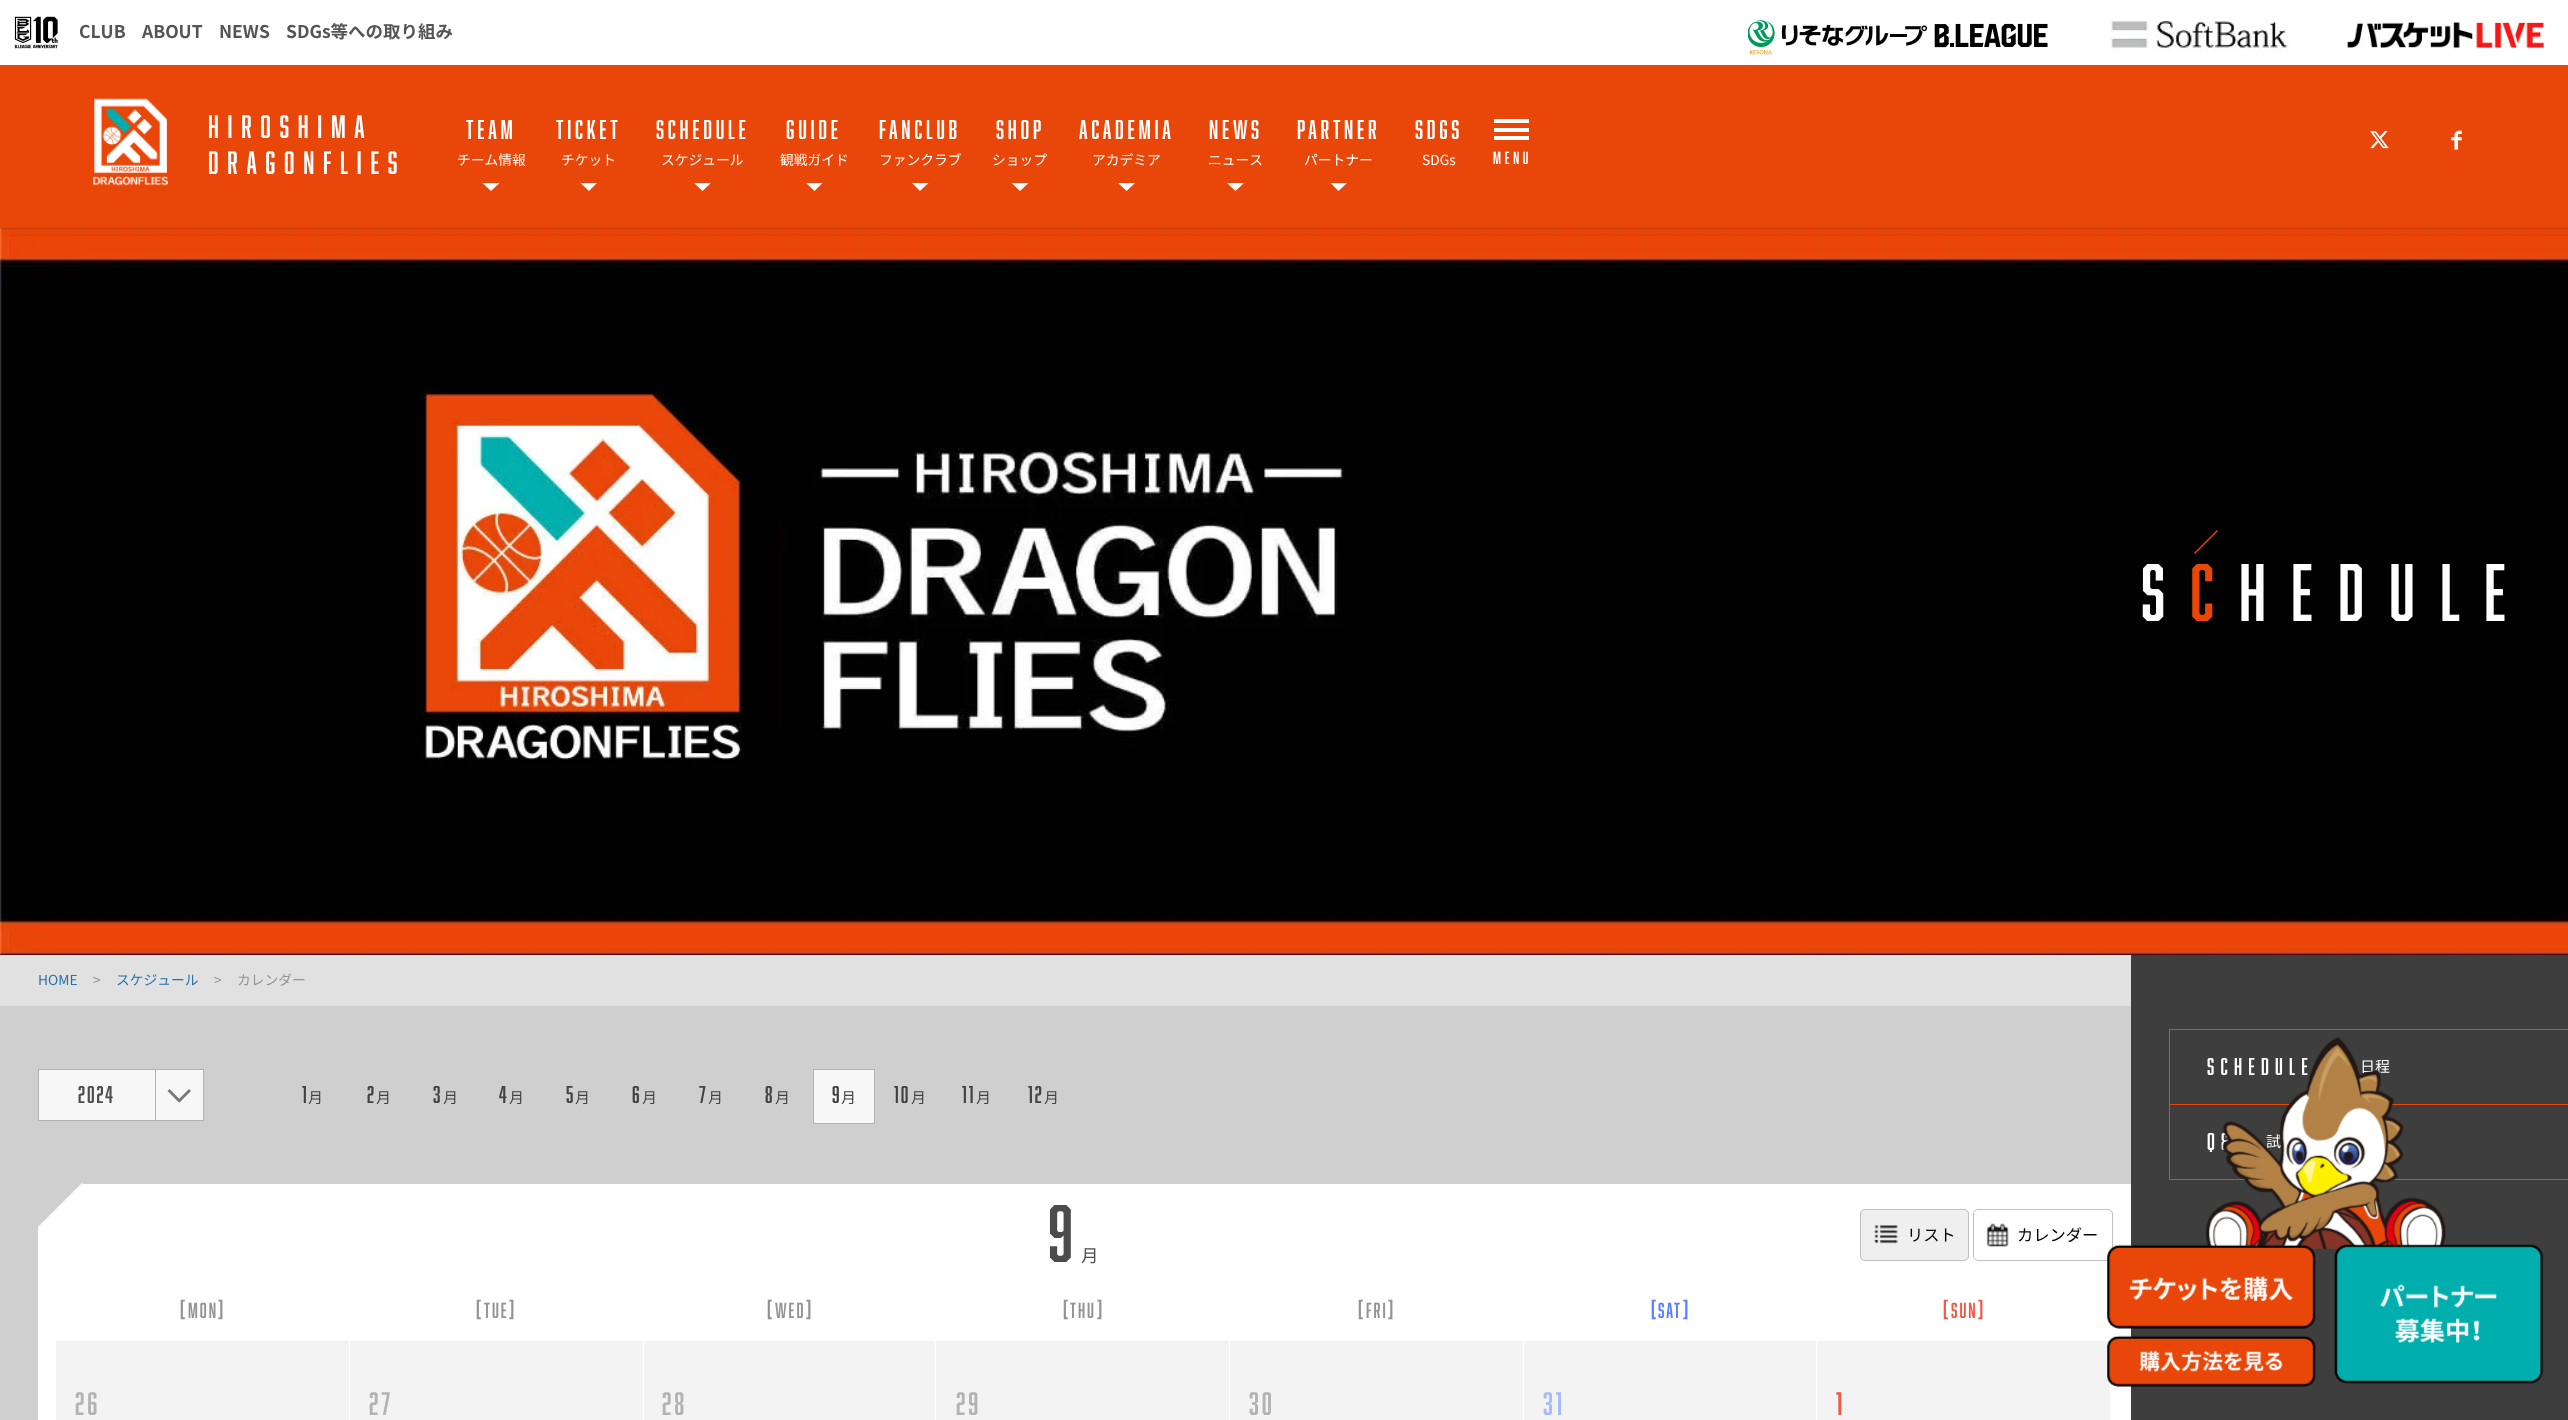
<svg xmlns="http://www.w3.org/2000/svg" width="2568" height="1420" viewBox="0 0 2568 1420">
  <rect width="100%" height="100%" fill="#ffffff"/>
  <image x="14" y="16" width="44" height="33" href="img1.png"/>
  <text x="79" y="38" font-family="Noto Sans CJK JP" font-size="17.5" font-weight="bold" fill="#545454">CLUB</text>
  <text x="142" y="38" font-family="Noto Sans CJK JP" font-size="17.5" font-weight="bold" fill="#545454">ABOUT</text>
  <text x="219" y="38" font-family="Noto Sans CJK JP" font-size="17.5" font-weight="bold" fill="#545454">NEWS</text>
  <text x="286" y="38" font-family="Noto Sans CJK JP" font-size="17.5" font-weight="bold" fill="#545454">SDGs等への取り組み</text>
  <image x="1748" y="20" width="300" height="35" href="img2.png"/>
  <image x="2111" y="21" width="180" height="30" href="img3.png"/>
  <image x="2347" y="22" width="197" height="27" href="img4.png"/>
  <rect x="0" y="65" width="2568" height="163" fill="#e94709"/>
  <image x="93" y="98" width="75" height="88" href="img5.png"/>
  <text x="208" y="138" font-family="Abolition" font-size="30" letter-spacing="8.75" fill="#ffffff">HIROSHIMA</text>
  <text x="208" y="174" font-family="Abolition" font-size="30" letter-spacing="8.75" fill="#ffffff">DRAGONFLIES</text>
  <text x="466" y="139" font-family="Abolition" font-size="25" letter-spacing="3.75" fill="#ffffff">TEAM</text>
  <text x="457" y="165" font-family="Noto Sans CJK JP" font-size="13.75" fill="#ffffff">チーム情報</text>
  <path d="M491 173.5L500 182.5L491 191L482 182.5Z" fill="#ffffff"/>
  <rect x="482" y="173" width="18" height="10" fill="#e94709"/>
  <text x="556" y="139" font-family="Abolition" font-size="25" letter-spacing="3.75" fill="#ffffff">TICKET</text>
  <text x="561" y="165" font-family="Noto Sans CJK JP" font-size="13.75" fill="#ffffff">チケット</text>
  <path d="M589 173.5L597.5 182.5L589 191L580 182.5Z" fill="#ffffff"/>
  <rect x="580" y="173" width="18" height="10" fill="#e94709"/>
  <text x="656" y="139" font-family="Abolition" font-size="25" letter-spacing="3.75" fill="#ffffff">SCHEDULE</text>
  <text x="661" y="165" font-family="Noto Sans CJK JP" font-size="13.75" fill="#ffffff">スケジュール</text>
  <path d="M702.5 173.5L711.5 182.5L702.5 191L693.5 182.5Z" fill="#ffffff"/>
  <rect x="693" y="173" width="19" height="10" fill="#e94709"/>
  <text x="786" y="139" font-family="Abolition" font-size="25" letter-spacing="3.75" fill="#ffffff">GUIDE</text>
  <text x="780" y="165" font-family="Noto Sans CJK JP" font-size="13.75" fill="#ffffff">観戦ガイド</text>
  <path d="M814.5 173.5L823 182.5L814.5 191L805.5 182.5Z" fill="#ffffff"/>
  <rect x="805" y="173" width="18" height="10" fill="#e94709"/>
  <text x="879" y="139" font-family="Abolition" font-size="25" letter-spacing="3.75" fill="#ffffff">FANCLUB</text>
  <text x="879" y="165" font-family="Noto Sans CJK JP" font-size="13.75" fill="#ffffff">ファンクラブ</text>
  <path d="M920 173.5L929 182.5L920 191L911.5 182.5Z" fill="#ffffff"/>
  <rect x="911" y="173" width="18" height="10" fill="#e94709"/>
  <text x="996" y="139" font-family="Abolition" font-size="25" letter-spacing="3.75" fill="#ffffff">SHOP</text>
  <text x="992" y="165" font-family="Noto Sans CJK JP" font-size="13.75" fill="#ffffff">ショップ</text>
  <path d="M1020 173.5L1029 182.5L1020 191L1011 182.5Z" fill="#ffffff"/>
  <rect x="1011" y="173" width="18" height="10" fill="#e94709"/>
  <text x="1079" y="139" font-family="Abolition" font-size="25" letter-spacing="3.75" fill="#ffffff">ACADEMIA</text>
  <text x="1092" y="165" font-family="Noto Sans CJK JP" font-size="13.75" fill="#ffffff">アカデミア</text>
  <path d="M1126.5 173.5L1135.5 182.5L1126.5 191L1117.5 182.5Z" fill="#ffffff"/>
  <rect x="1117" y="173" width="19" height="10" fill="#e94709"/>
  <text x="1209" y="139" font-family="Abolition" font-size="25" letter-spacing="3.75" fill="#ffffff">NEWS</text>
  <text x="1208" y="165" font-family="Noto Sans CJK JP" font-size="13.75" fill="#ffffff">ニュース</text>
  <path d="M1235.5 173.5L1244.5 182.5L1235.5 191L1226.5 182.5Z" fill="#ffffff"/>
  <rect x="1226" y="173" width="19" height="10" fill="#e94709"/>
  <text x="1297" y="139" font-family="Abolition" font-size="25" letter-spacing="3.75" fill="#ffffff">PARTNER</text>
  <text x="1304" y="165" font-family="Noto Sans CJK JP" font-size="13.75" fill="#ffffff">パートナー</text>
  <path d="M1338.5 173.5L1347.5 182.5L1338.5 191L1330 182.5Z" fill="#ffffff"/>
  <rect x="1330" y="173" width="18" height="10" fill="#e94709"/>
  <text x="1415" y="139" font-family="Abolition" font-size="25" letter-spacing="3.75" fill="#ffffff">SDGs</text>
  <text x="1422" y="165" font-family="Noto Sans CJK JP" font-size="13.75" fill="#ffffff">SDGs</text>
  <rect x="1494" y="119" width="35" height="4" fill="#ffffff"/>
  <rect x="1494" y="128" width="35" height="4" fill="#ffffff"/>
  <rect x="1494" y="136" width="35" height="4" fill="#ffffff"/>
  <text x="1493" y="164" font-family="Abolition" font-size="16.25" letter-spacing="3.75" fill="#ffffff">MENU</text>
  <image x="2370" y="131" width="19" height="18" href="img6.png"/>
  <image x="2451" y="130" width="11" height="20" href="img7.png"/>
  <image x="0" y="228" width="2568" height="727" href="img8.png"/>
  <text x="2141" y="621" font-family="Abolition" font-size="75" fill="#ffffff">S</text>
  <path d="M2194 553L2217 530L2218 531L2195 554Z" fill="#e94709"/>
  <text x="2190" y="621" font-family="Abolition" font-size="75" fill="#e94709">C</text>
  <text x="2239" y="621" font-family="Abolition" font-size="75" fill="#ffffff">H</text>
  <text x="2291" y="621" font-family="Abolition" font-size="75" fill="#ffffff">E</text>
  <text x="2338" y="621" font-family="Abolition" font-size="75" fill="#ffffff">D</text>
  <text x="2389" y="621" font-family="Abolition" font-size="75" fill="#ffffff">U</text>
  <text x="2440" y="621" font-family="Abolition" font-size="75" fill="#ffffff">L</text>
  <text x="2484" y="621" font-family="Abolition" font-size="75" fill="#ffffff">E</text>
  <rect x="2131" y="955" width="437" height="465" fill="#3e3e3e"/>
  <rect x="0" y="1006" width="2131" height="414" fill="#cfcfcf"/>
  <rect x="0" y="955" width="2131" height="51" fill="#e1e1e2"/>
  <text x="38" y="985" font-family="Noto Sans CJK JP" font-size="13.75" fill="#2971a7">HOME</text>
  <text x="93" y="985" font-family="Noto Sans CJK JP" font-size="13.75" fill="#939393">&gt;</text>
  <text x="116" y="985" font-family="Noto Sans CJK JP" font-size="13.75" fill="#2971a7">スケジュール</text>
  <text x="214" y="985" font-family="Noto Sans CJK JP" font-size="13.75" fill="#939393">&gt;</text>
  <text x="237" y="985" font-family="Noto Sans CJK JP" font-size="13.75" fill="#939393">カレンダー</text>
  <rect x="38.5" y="1069.5" width="117" height="51" fill="#f7f7f7" stroke="#b2b2b2"/>
  <text x="78" y="1103" font-family="Abolition" font-size="22.5" letter-spacing="2" fill="#4c4c4c">2024</text>
  <rect x="156" y="1070" width="47" height="50" fill="#f7f7f7"/>
  <rect x="156" y="1069" width="48" height="1" fill="#b2b2b2"/>
  <rect x="203" y="1069" width="1" height="52" fill="#b2b2b2"/>
  <rect x="156" y="1120" width="48" height="1" fill="#b2b2b2"/>
  <path d="M169.5 1089L181 1100.5L179 1102.5L167.5 1091Z" fill="#797979"/>
  <path d="M177.5 1100.5L189 1089L191 1091L179.5 1102.5Z" fill="#797979"/>
  <text x="302" y="1103" font-family="Abolition" font-size="22.5" letter-spacing="2" fill="#424242">1</text>
  <text x="308" y="1103" font-family="Noto Sans CJK JP" font-size="15" fill="#424242">月</text>
  <text x="367" y="1103" font-family="Abolition" font-size="22.5" letter-spacing="2" fill="#424242">2</text>
  <text x="376" y="1103" font-family="Noto Sans CJK JP" font-size="15" fill="#424242">月</text>
  <text x="433" y="1103" font-family="Abolition" font-size="22.5" letter-spacing="2" fill="#424242">3</text>
  <text x="443" y="1103" font-family="Noto Sans CJK JP" font-size="15" fill="#424242">月</text>
  <text x="499" y="1103" font-family="Abolition" font-size="22.5" letter-spacing="2" fill="#424242">4</text>
  <text x="509" y="1103" font-family="Noto Sans CJK JP" font-size="15" fill="#424242">月</text>
  <text x="566" y="1103" font-family="Abolition" font-size="22.5" letter-spacing="2" fill="#424242">5</text>
  <text x="575" y="1103" font-family="Noto Sans CJK JP" font-size="15" fill="#424242">月</text>
  <text x="632" y="1103" font-family="Abolition" font-size="22.5" letter-spacing="2" fill="#424242">6</text>
  <text x="642" y="1103" font-family="Noto Sans CJK JP" font-size="15" fill="#424242">月</text>
  <text x="699" y="1103" font-family="Abolition" font-size="22.5" letter-spacing="2" fill="#424242">7</text>
  <text x="708" y="1103" font-family="Noto Sans CJK JP" font-size="15" fill="#424242">月</text>
  <text x="765" y="1103" font-family="Abolition" font-size="22.5" letter-spacing="2" fill="#424242">8</text>
  <text x="775" y="1103" font-family="Noto Sans CJK JP" font-size="15" fill="#424242">月</text>
  <rect x="813.5" y="1069.5" width="61" height="54" fill="#f7f7f7" stroke="#b2b2b2"/>
  <text x="832" y="1103" font-family="Abolition" font-size="22.5" letter-spacing="2" fill="#424242">9</text>
  <text x="841" y="1103" font-family="Noto Sans CJK JP" font-size="15" fill="#424242">月</text>
  <text x="894" y="1103" font-family="Abolition" font-size="22.5" letter-spacing="2" fill="#424242">10</text>
  <text x="911" y="1103" font-family="Noto Sans CJK JP" font-size="15" fill="#424242">月</text>
  <text x="962" y="1103" font-family="Abolition" font-size="22.5" letter-spacing="2" fill="#424242">11</text>
  <text x="976" y="1103" font-family="Noto Sans CJK JP" font-size="15" fill="#424242">月</text>
  <text x="1028" y="1103" font-family="Abolition" font-size="22.5" letter-spacing="2" fill="#424242">12</text>
  <text x="1044" y="1103" font-family="Noto Sans CJK JP" font-size="15" fill="#424242">月</text>
  <rect x="83" y="1184" width="2048" height="44" fill="#ffffff"/>
  <rect x="38" y="1228" width="2093" height="192" fill="#ffffff"/>
  <path d="M82 1183L127 1227L82 1271L38 1227Z" fill="#ffffff"/>
  <text x="1048" y="1262" font-family="Abolition" font-size="75" letter-spacing="8" fill="#4c4c4c">9</text>
  <text x="1081" y="1262" font-family="Noto Sans CJK JP" font-size="17.5" fill="#4c4c4c">月</text>
  <rect x="1860" y="1209" width="109" height="52" rx="5" fill="#efefef"/>
  <image x="1873" y="1225" width="25" height="19" href="img9.png"/>
  <rect x="1860.5" y="1209.5" width="108" height="51" rx="4.5" fill="none" stroke="#bfbfbf"/>
  <text x="1907" y="1241" font-family="Noto Sans CJK JP" font-size="16.25" fill="#000000">リスト</text>
  <image x="1986" y="1223" width="23" height="24" href="img10.png"/>
  <rect x="1973.5" y="1209.5" width="139" height="51" rx="4.5" fill="none" stroke="#bfbfbf"/>
  <text x="2017" y="1241" font-family="Noto Sans CJK JP" font-size="16.25" fill="#000000">カレンダー</text>
  <text x="180" y="1318" font-family="Abolition" font-size="22.5" letter-spacing="2" fill="#939393">[</text>
  <text x="188" y="1318" font-family="Abolition" font-size="20" letter-spacing="2" fill="#939393">MON</text>
  <text x="218" y="1318" font-family="Abolition" font-size="22.5" letter-spacing="2" fill="#939393">]</text>
  <text x="476" y="1318" font-family="Abolition" font-size="22.5" letter-spacing="2" fill="#939393">[</text>
  <text x="484" y="1318" font-family="Abolition" font-size="20" letter-spacing="2" fill="#939393">TUE</text>
  <text x="509" y="1318" font-family="Abolition" font-size="22.5" letter-spacing="2" fill="#939393">]</text>
  <text x="767" y="1318" font-family="Abolition" font-size="22.5" letter-spacing="2" fill="#939393">[</text>
  <text x="775" y="1318" font-family="Abolition" font-size="20" letter-spacing="2" fill="#939393">WED</text>
  <text x="806" y="1318" font-family="Abolition" font-size="22.5" letter-spacing="2" fill="#939393">]</text>
  <text x="1063" y="1318" font-family="Abolition" font-size="22.5" letter-spacing="2" fill="#939393">[</text>
  <text x="1070" y="1318" font-family="Abolition" font-size="20" letter-spacing="2" fill="#939393">THU</text>
  <text x="1097" y="1318" font-family="Abolition" font-size="22.5" letter-spacing="2" fill="#939393">]</text>
  <text x="1358" y="1318" font-family="Abolition" font-size="22.5" letter-spacing="2" fill="#939393">[</text>
  <text x="1366" y="1318" font-family="Abolition" font-size="20" letter-spacing="2" fill="#939393">FRI</text>
  <text x="1388" y="1318" font-family="Abolition" font-size="22.5" letter-spacing="2" fill="#939393">]</text>
  <text x="1651" y="1318" font-family="Abolition" font-size="22.5" letter-spacing="2" fill="#5680ff">[</text>
  <text x="1658" y="1318" font-family="Abolition" font-size="20" letter-spacing="2" fill="#5680ff">SAT</text>
  <text x="1683" y="1318" font-family="Abolition" font-size="22.5" letter-spacing="2" fill="#5680ff">]</text>
  <text x="1943" y="1318" font-family="Abolition" font-size="22.5" letter-spacing="2" fill="#ed5945">[</text>
  <text x="1951" y="1318" font-family="Abolition" font-size="20" letter-spacing="2" fill="#ed5945">SUN</text>
  <text x="1978" y="1318" font-family="Abolition" font-size="22.5" letter-spacing="2" fill="#ed5945">]</text>
  <rect x="56" y="1341" width="293" height="79" fill="#f3f3f3"/>
  <text x="75" y="1415" font-family="Abolition" font-size="30" letter-spacing="3" fill="#b3b3b3">26</text>
  <rect x="350" y="1341" width="293" height="79" fill="#f3f3f3"/>
  <text x="369" y="1415" font-family="Abolition" font-size="30" letter-spacing="3" fill="#b3b3b3">27</text>
  <rect x="644" y="1341" width="291" height="79" fill="#f3f3f3"/>
  <text x="662" y="1415" font-family="Abolition" font-size="30" letter-spacing="3" fill="#b3b3b3">28</text>
  <rect x="936" y="1341" width="293" height="79" fill="#f3f3f3"/>
  <text x="956" y="1415" font-family="Abolition" font-size="30" letter-spacing="3" fill="#b3b3b3">29</text>
  <rect x="1230" y="1341" width="293" height="79" fill="#f3f3f3"/>
  <text x="1249" y="1415" font-family="Abolition" font-size="30" letter-spacing="3" fill="#b3b3b3">30</text>
  <rect x="1524" y="1341" width="586" height="79" fill="#f3f3f3"/>
  <rect x="1816" y="1341" width="1" height="79" fill="#ffffff"/>
  <text x="1543" y="1415" font-family="Abolition" font-size="30" letter-spacing="3" fill="#a5baf9">31</text>
  <text x="1836" y="1415" font-family="Abolition" font-size="30" letter-spacing="3" fill="#ed5945">1</text>
  <rect x="2169.5" y="1029.5" width="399" height="75" fill="none" stroke="#e94709"/>
  <text x="2207" y="1075" font-family="Abolition" font-size="22.5" letter-spacing="6.25" fill="#ffffff">SCHEDULE</text>
  <text x="2360" y="1072" font-family="Noto Sans CJK JP" font-size="15" fill="#ffffff">日程</text>
  <rect x="2169.5" y="1104.5" width="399" height="75" fill="none" stroke="#e94709"/>
  <text x="2207" y="1150" font-family="Abolition" font-size="22.5" letter-spacing="6.25" fill="#ffffff">Q&amp;</text>
  <text x="2266" y="1147" font-family="Noto Sans CJK JP" font-size="15" fill="#ffffff">試</text>
  <image x="2205" y="1037" width="241" height="212" href="img11.png"/>
  <image x="2107" y="1244" width="209" height="85" href="img12.png"/>
  <image x="2107" y="1335" width="209" height="52" href="img13.png"/>
  <image x="2334" y="1244" width="210" height="140" href="img14.png"/>
</svg>
